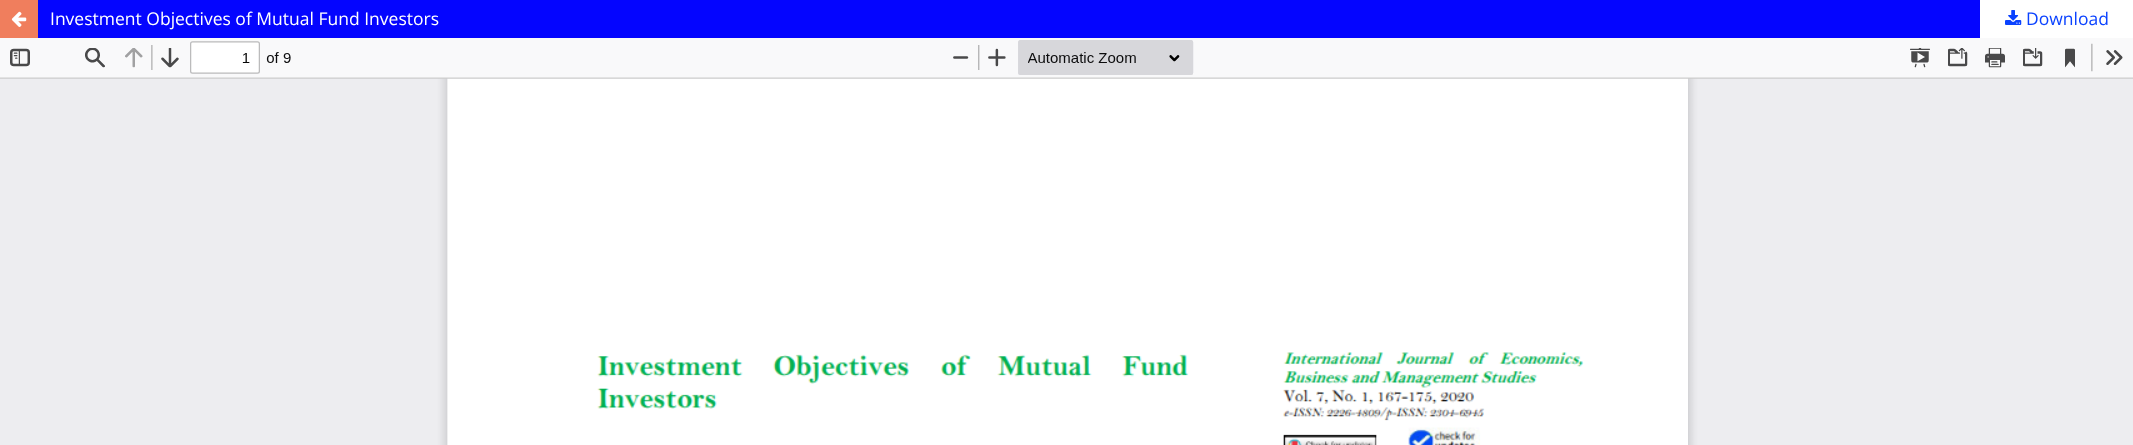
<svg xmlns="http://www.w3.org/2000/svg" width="2133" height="445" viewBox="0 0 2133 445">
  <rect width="100%" height="100%" fill="#ffffff"/>
  <rect x="38" y="0" width="1942" height="38" fill="#0405ff"/>
  <rect x="0" y="0" width="38" height="38" fill="#f07e5d"/>
  <image x="11" y="11" width="16" height="16" href="img1.png"/>
  <text x="50" y="25" font-family="Open Sans" font-size="17.5" fill="#ffffff">Investment Objectives of Mutual Fund Investors</text>
  <image x="2005" y="10" width="17" height="15" href="img2.png"/>
  <text x="2026" y="25" font-family="Open Sans" font-size="17.5" fill="#0a42ff">Download</text>
  <image x="0" y="38" width="2133" height="407" href="img3.png"/>
</svg>
